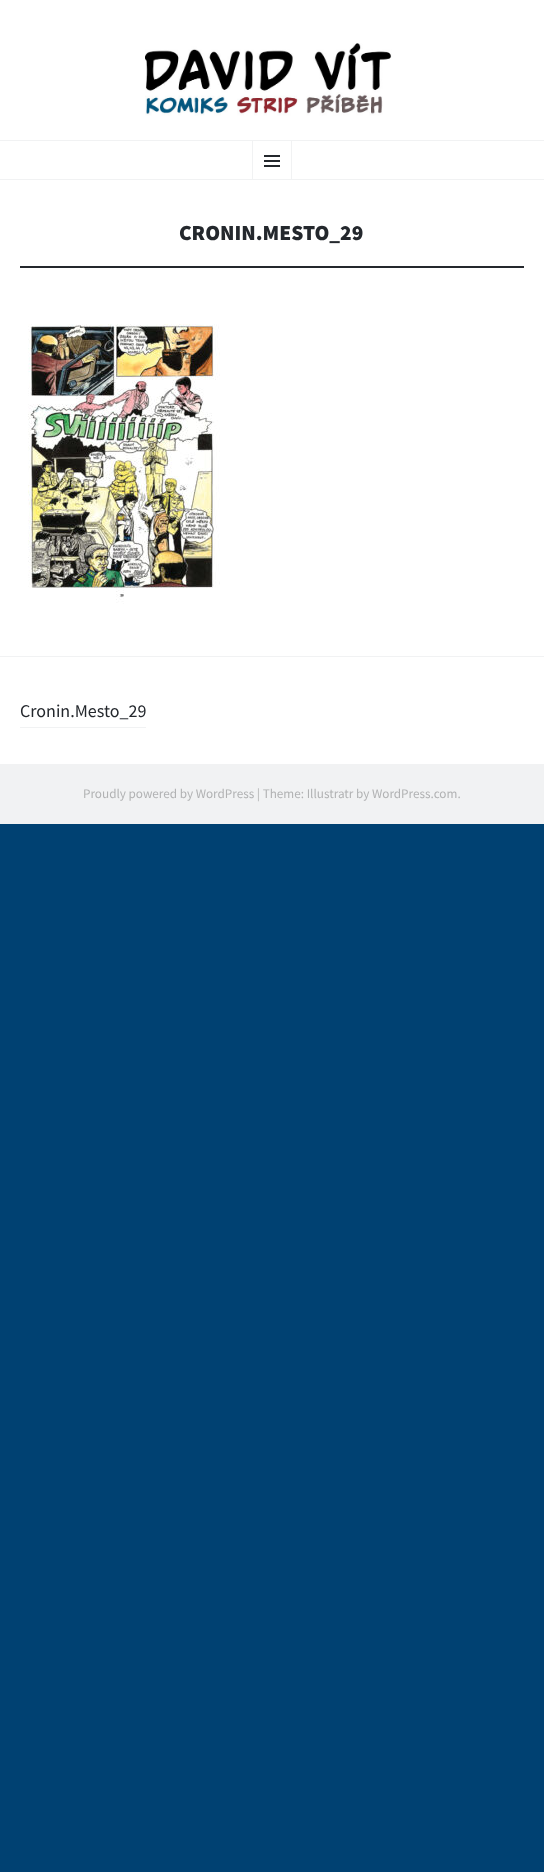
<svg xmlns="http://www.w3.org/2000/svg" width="544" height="1872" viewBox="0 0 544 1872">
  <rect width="100%" height="100%" fill="#004172"/>
  <rect x="0" y="0" width="544" height="764" fill="#ffffff"/>
  <image x="145" y="43" width="247" height="73" href="img1.png"/>
  <rect x="0" y="140" width="544" height="1" fill="#f1f2f3"/>
  <rect x="0" y="179" width="544" height="1" fill="#f1f2f3"/>
  <rect x="252.5" y="140.5" width="39" height="39" fill="none" stroke="#f1f2f3"/>
  <image x="264" y="155" width="16" height="12" href="img2.png"/>
  <text x="179" y="240" font-family="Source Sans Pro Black" font-size="21.5" font-weight="900" fill="#24282d">CRONIN.MESTO_29</text>
  <rect x="20" y="266" width="504" height="2" fill="#24282d"/>
  <image x="28" y="324" width="192" height="280" href="img3.png"/>
  <rect x="0" y="656" width="544" height="1" fill="#f1f2f3"/>
  <text x="20" y="717" font-family="Source Sans Pro" font-size="18" fill="#24282d">Cronin.Mesto_29</text>
  <rect x="20" y="727" width="126" height="1" fill="#f1f2f3"/>
  <rect x="0" y="764" width="544" height="60" fill="#f1f2f3"/>
  <text x="83" y="798" font-family="Source Sans Pro" font-size="13.15" fill="#b1b2b3">Proudly powered by WordPress | Theme: Illustratr by WordPress.com.</text>
</svg>
